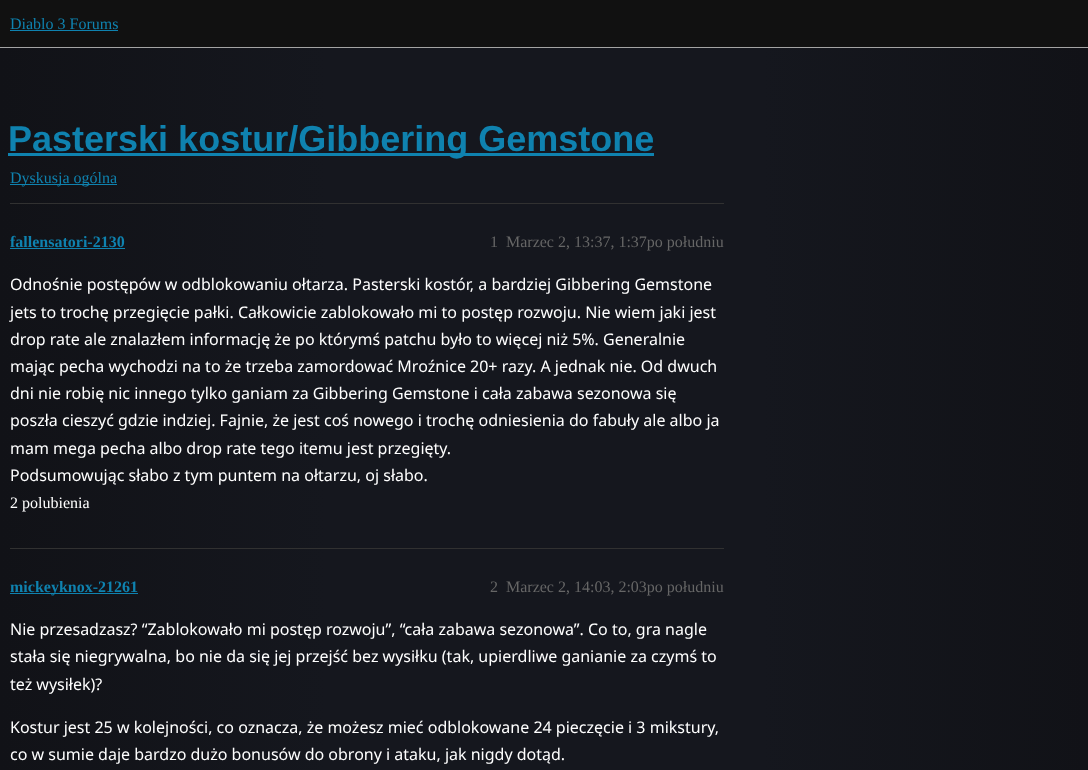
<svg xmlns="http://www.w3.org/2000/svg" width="1088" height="770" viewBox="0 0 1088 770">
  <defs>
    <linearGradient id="g1" gradientUnits="userSpaceOnUse" x1="0" y1="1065" x2="1088" y2="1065"><stop offset="0" stop-color="#111217"/><stop offset="0.3" stop-color="#15171e"/><stop offset="0.7" stop-color="#15171e"/><stop offset="1" stop-color="#111217"/></linearGradient>
  </defs>
  <rect width="100%" height="100%" fill="#ffffff"/>
  <rect x="0" y="48" width="1088" height="722" fill="url(#g1)"/>
  <rect x="0" y="0" width="1088" height="47" fill="#111111"/>
  <rect x="0" y="47" width="1088" height="1" fill="#a4a4a4"/>
  <text x="10" y="29" font-family="Liberation Serif" font-size="16" fill="#0f82af">Diablo 3 Forums</text>
  <rect x="10" y="30" width="108" height="1" fill="#0f82af"/>
  <rect x="8" y="153" width="646" height="3" fill="#0f82af"/>
  <text x="8" y="151" font-family="Liberation Sans" font-size="36" font-weight="bold" fill="#0f82af">Pasterski kostur/Gibbering Gemstone</text>
  <rect x="10" y="184" width="107" height="1" fill="#0f82af"/>
  <text x="10" y="183" font-family="Liberation Serif" font-size="16" fill="#0f82af">Dyskusja ogólna</text>
  <rect x="10" y="203" width="714" height="1" fill="#313131"/>
  <text x="10" y="247" font-family="Liberation Serif" font-size="16" font-weight="bold" fill="#0f82af">fallensatori-2130</text>
  <rect x="10" y="248" width="115" height="1" fill="#0f82af"/>
  <text x="490" y="247" font-family="Liberation Serif" font-size="16" fill="#666666">1</text>
  <text x="506" y="247" font-family="Liberation Serif" font-size="16" fill="#666666">Marzec 2, 13:37, 1:37po południu</text>
  <text x="10" y="290" font-family="Noto Sans" font-size="16" fill="#ffffff">Odnośnie postępów w odblokowaniu ołtarza. Pasterski kostór, a bardziej Gibbering Gemstone</text>
  <text x="10" y="318" font-family="Noto Sans" font-size="16" fill="#ffffff">jets to trochę przegięcie pałki. Całkowicie zablokowało mi to postęp rozwoju. Nie wiem jaki jest</text>
  <text x="10" y="345" font-family="Noto Sans" font-size="16" fill="#ffffff">drop rate ale znalazłem informację że po którymś patchu było to więcej niż 5%. Generalnie</text>
  <text x="10" y="372" font-family="Noto Sans" font-size="16" fill="#ffffff">mając pecha wychodzi na to że trzeba zamordować Mroźnice 20+ razy. A jednak nie. Od dwuch</text>
  <text x="10" y="399" font-family="Noto Sans" font-size="16" fill="#ffffff">dni nie robię nic innego tylko ganiam za Gibbering Gemstone i cała zabawa sezonowa się</text>
  <text x="10" y="426" font-family="Noto Sans" font-size="16" fill="#ffffff">poszła cieszyć gdzie indziej. Fajnie, że jest coś nowego i trochę odniesienia do fabuły ale albo ja</text>
  <text x="10" y="454" font-family="Noto Sans" font-size="16" fill="#ffffff">mam mega pecha albo drop rate tego itemu jest przegięty.</text>
  <text x="10" y="481" font-family="Noto Sans" font-size="16" fill="#ffffff">Podsumowując słabo z tym puntem na ołtarzu, oj słabo.</text>
  <text x="10" y="508" font-family="Liberation Serif" font-size="16" fill="#ffffff">2 polubienia</text>
  <rect x="10" y="548" width="714" height="1" fill="#313131"/>
  <rect x="10" y="593" width="128" height="1" fill="#0f82af"/>
  <text x="10" y="592" font-family="Liberation Serif" font-size="16" font-weight="bold" fill="#0f82af">mickeyknox-21261</text>
  <text x="490" y="592" font-family="Liberation Serif" font-size="16" fill="#666666">2</text>
  <text x="506" y="592" font-family="Liberation Serif" font-size="16" fill="#666666">Marzec 2, 14:03, 2:03po południu</text>
  <text x="10" y="635" font-family="Noto Sans" font-size="16" fill="#ffffff">Nie przesadzasz? “Zablokowało mi postęp rozwoju”, “cała zabawa sezonowa”. Co to, gra nagle</text>
  <text x="10" y="662" font-family="Noto Sans" font-size="16" fill="#ffffff">stała się niegrywalna, bo nie da się jej przejść bez wysiłku (tak, upierdliwe ganianie za czymś to</text>
  <text x="10" y="690" font-family="Noto Sans" font-size="16" fill="#ffffff">też wysiłek)?</text>
  <text x="10" y="733" font-family="Noto Sans" font-size="16" fill="#ffffff">Kostur jest 25 w kolejności, co oznacza, że możesz mieć odblokowane 24 pieczęcie i 3 mikstury,</text>
  <text x="10" y="760" font-family="Noto Sans" font-size="16" fill="#ffffff">co w sumie daje bardzo dużo bonusów do obrony i ataku, jak nigdy dotąd.</text>
</svg>
